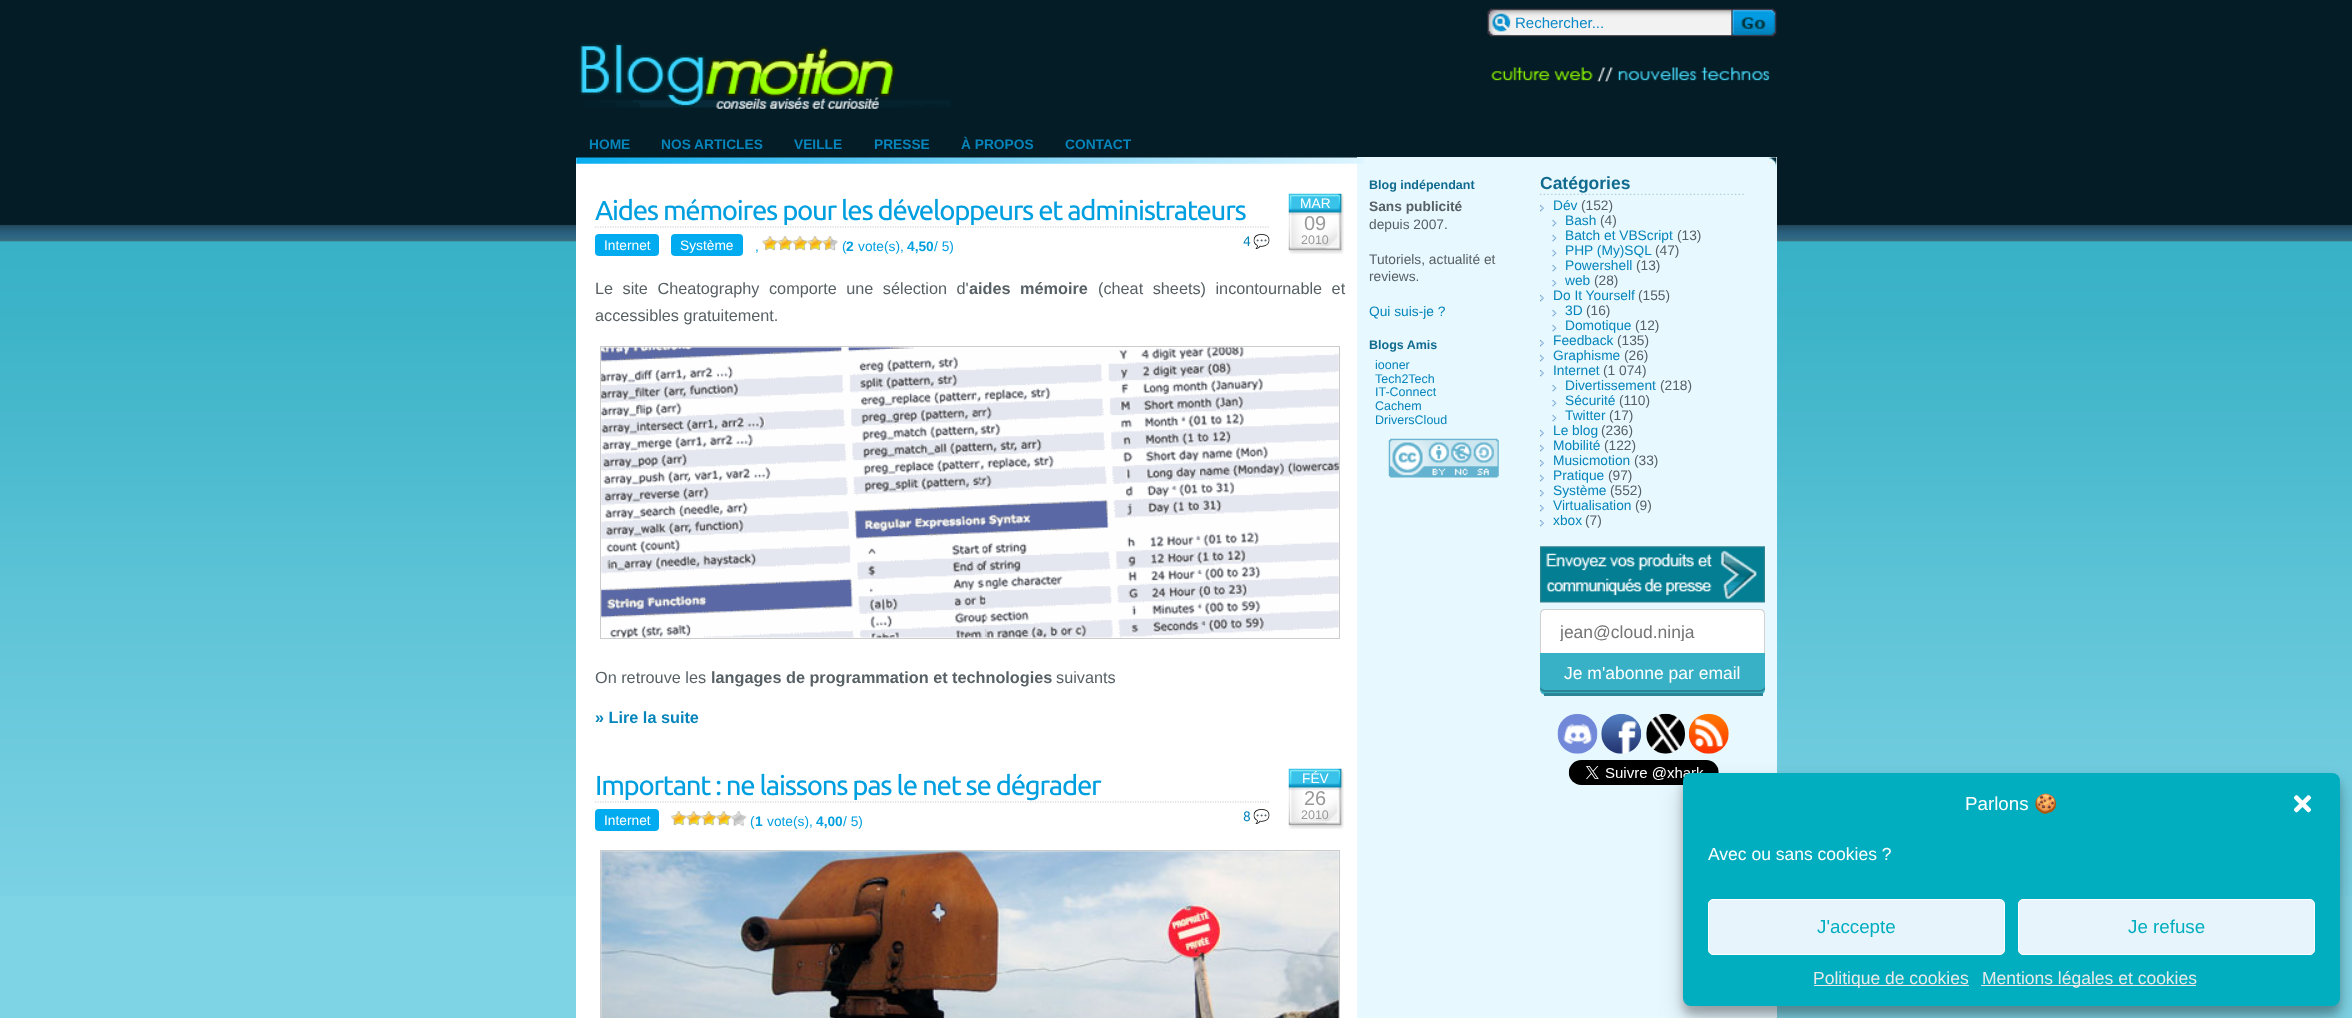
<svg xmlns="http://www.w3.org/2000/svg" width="2352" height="1018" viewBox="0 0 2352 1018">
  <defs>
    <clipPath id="clip1"><rect x="1560" y="621" width="185" height="20"/></clipPath>
    <filter id="blur1" x="-50%" y="-200%" width="200%" height="500%"><feGaussianBlur stdDeviation="4"/></filter>
    <filter id="blur2" x="-50%" y="-200%" width="200%" height="500%"><feGaussianBlur stdDeviation="12.5"/></filter>
  </defs>
  <rect width="100%" height="100%" fill="#7ed3e5"/>
  <image x="0" y="0" width="2352" height="896" href="img1.png"/>
  <image x="1487" y="8" width="246" height="29" href="img2.png"/>
  <text x="1515" y="28" font-family="Liberation Sans" font-size="15" fill="#0b88c6">Rechercher...</text>
  <image x="1732" y="8" width="45" height="29" href="img3.png"/>
  <image x="579" y="42" width="372" height="67" href="img4.png"/>
  <image x="1491" y="67" width="279" height="15" href="img5.png"/>
  <text x="589" y="149" font-family="Liberation Sans" font-size="13.75" font-weight="bold" fill="#0685bb">HOME</text>
  <text x="661" y="149" font-family="Liberation Sans" font-size="13.75" font-weight="bold" fill="#0685bb">NOS ARTICLES</text>
  <text x="794" y="149" font-family="Liberation Sans" font-size="13.75" font-weight="bold" fill="#0685bb">VEILLE</text>
  <text x="874" y="149" font-family="Liberation Sans" font-size="13.75" font-weight="bold" fill="#0685bb">PRESSE</text>
  <text x="961" y="149" font-family="Liberation Sans" font-size="13.75" font-weight="bold" fill="#0685bb">À PROPOS</text>
  <text x="1065" y="149" font-family="Liberation Sans" font-size="13.75" font-weight="bold" fill="#0685bb">CONTACT</text>
  <rect x="576" y="158" width="781" height="860" fill="#ffffff"/>
  <rect x="1357" y="157" width="420" height="861" fill="#e7f8ff"/>
  <image x="1767" y="157" width="10" height="10" href="img6.png"/>
  <image x="576" y="157" width="788" height="7" href="img7.png"/>
  <path d="M595 227H1270" fill="none" stroke="#cccccc" stroke-width="1.2" stroke-dasharray="1.25 1.25"/>
  <text x="595" y="220" font-family="Ubuntu" font-size="27.5" letter-spacing="-1.25" fill="#009fdf">Aides mémoires pour les développeurs et administrateurs</text>
  <rect x="595" y="234" width="64" height="22" rx="4" fill="#00abef"/>
  <text x="604" y="250" font-family="Liberation Sans" font-size="13.75" fill="#ffffff">Internet</text>
  <rect x="671" y="234" width="72" height="22" rx="4" fill="#00abef"/>
  <text x="680" y="250" font-family="Liberation Sans" font-size="13.75" fill="#ffffff">Système</text>
  <text x="755" y="251" font-family="Liberation Sans" font-size="13.75" fill="#009fdf">,</text>
  <image x="762" y="236" width="16" height="15" href="img8.png"/>
  <image x="777" y="236" width="16" height="15" href="img9.png"/>
  <image x="792" y="236" width="16" height="15" href="img10.png"/>
  <image x="807" y="236" width="16" height="15" href="img9.png"/>
  <image x="822" y="236" width="16" height="15" href="img11.png"/>
  <text x="842" y="251" font-family="Liberation Sans" font-size="13.75" fill="#009fdf">(</text>
  <text x="846" y="251" font-family="Liberation Sans" font-size="13.75" font-weight="bold" fill="#009fdf">2</text>
  <text x="858" y="251" font-family="Liberation Sans" font-size="13.75" fill="#009fdf">vote(s),</text>
  <text x="907" y="251" font-family="Liberation Sans" font-size="13.75" font-weight="bold" fill="#009fdf">4,50</text>
  <text x="934" y="251" font-family="Liberation Sans" font-size="13.75" fill="#009fdf">/ 5)</text>
  <text x="1243" y="246" font-family="Ubuntu" font-size="13.75" fill="#0685bb">4</text>
  <text x="1253" y="246" font-family="Noto Color Emoji" font-size="13.75" fill="#009fdf">💬</text>
  <image x="1288" y="193" width="56" height="61" href="img12.png"/>
  <text x="1300" y="208" font-family="Liberation Sans" font-size="13.75" fill="#ffffff">MAR</text>
  <text x="1304" y="230" font-family="Liberation Sans" font-size="20" fill="#999999">09</text>
  <text x="1301" y="244" font-family="Liberation Sans" font-size="12.5" fill="#999999">2010</text>
  <text x="595" y="294" word-spacing="5" font-family="Liberation Sans" font-size="16.25" fill="#576064">Le site Cheatography comporte une sélection d'</text>
  <text x="969" y="294" word-spacing="5" font-family="Liberation Sans" font-size="16.25" font-weight="bold" fill="#576064">aides mémoire</text>
  <text x="1098" y="294" word-spacing="5" font-family="Liberation Sans" font-size="16.25" fill="#576064">(cheat sheets) incontournable et</text>
  <text x="595" y="321" font-family="Liberation Sans" font-size="16.25" fill="#576064">accessibles gratuitement.</text>
  <rect x="600.5" y="346.5" width="739" height="292" fill="none" stroke="#cccccc"/>
  <image x="601" y="347" width="738" height="291" href="img13.png"/>
  <text x="595" y="683" font-family="Liberation Sans" font-size="16.25" fill="#576064">On retrouve les</text>
  <text x="711" y="683" font-family="Liberation Sans" font-size="16.25" font-weight="bold" fill="#576064">langages de programmation et technologies</text>
  <text x="1056" y="683" font-family="Liberation Sans" font-size="16.25" fill="#576064">suivants</text>
  <text x="595" y="723" font-family="Liberation Sans" font-size="16.25" font-weight="bold" fill="#0685bb">» Lire la suite</text>
  <path d="M595 802H1270" fill="none" stroke="#cccccc" stroke-width="1.2" stroke-dasharray="1.25 1.25"/>
  <text x="595" y="795" font-family="Ubuntu" font-size="27.5" letter-spacing="-1.25" fill="#009fdf">Important : ne laissons pas le net se dégrader</text>
  <rect x="595" y="809" width="64" height="22" rx="4" fill="#00abef"/>
  <text x="604" y="825" font-family="Liberation Sans" font-size="13.75" fill="#ffffff">Internet</text>
  <image x="671" y="811" width="16" height="15" href="img14.png"/>
  <image x="686" y="811" width="16" height="15" href="img15.png"/>
  <image x="701" y="811" width="16" height="15" href="img15.png"/>
  <image x="716" y="811" width="16" height="15" href="img15.png"/>
  <image x="731" y="811" width="16" height="16" href="img16.png"/>
  <text x="750" y="826" font-family="Liberation Sans" font-size="13.75" fill="#009fdf">(</text>
  <text x="755" y="826" font-family="Liberation Sans" font-size="13.75" font-weight="bold" fill="#009fdf">1</text>
  <text x="767" y="826" font-family="Liberation Sans" font-size="13.75" fill="#009fdf">vote(s),</text>
  <text x="816" y="826" font-family="Liberation Sans" font-size="13.75" font-weight="bold" fill="#009fdf">4,00</text>
  <text x="843" y="826" font-family="Liberation Sans" font-size="13.75" fill="#009fdf">/ 5)</text>
  <text x="1243" y="821" font-family="Ubuntu" font-size="13.75" fill="#0685bb">8</text>
  <text x="1253" y="821" font-family="Noto Color Emoji" font-size="13.75" fill="#009fdf">💬</text>
  <image x="1288" y="768" width="56" height="61" href="img12.png"/>
  <text x="1302" y="783" font-family="Liberation Sans" font-size="13.75" fill="#ffffff">FÉV</text>
  <text x="1304" y="805" font-family="Liberation Sans" font-size="20" fill="#999999">26</text>
  <text x="1301" y="819" font-family="Liberation Sans" font-size="12.5" fill="#999999">2010</text>
  <rect x="600.5" y="850.5" width="739" height="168" fill="none" stroke="#cccccc"/>
  <image x="601" y="851" width="738" height="167" href="img17.png"/>
  <text x="1369" y="189" font-family="Liberation Sans" font-size="12.5" font-weight="bold" fill="#116b8f">Blog indépendant</text>
  <text x="1369" y="211" font-family="Liberation Sans" font-size="13.75" font-weight="bold" fill="#576064">Sans publicité</text>
  <text x="1369" y="229" font-family="Liberation Sans" font-size="13.75" fill="#576064">depuis 2007.</text>
  <text x="1369" y="264" font-family="Liberation Sans" font-size="13.75" fill="#576064">Tutoriels, actualité et</text>
  <text x="1369" y="281" font-family="Liberation Sans" font-size="13.75" fill="#576064">reviews.</text>
  <text x="1369" y="316" font-family="Liberation Sans" font-size="13.75" fill="#0685bb">Qui suis-je ?</text>
  <text x="1369" y="349" font-family="Liberation Sans" font-size="12.5" font-weight="bold" fill="#116b8f">Blogs Amis</text>
  <text x="1375" y="369" font-family="Liberation Sans" font-size="12.5" fill="#0685bb">iooner</text>
  <text x="1375" y="383" font-family="Liberation Sans" font-size="12.5" fill="#0685bb">Tech2Tech</text>
  <text x="1375" y="396" font-family="Liberation Sans" font-size="12.5" fill="#0685bb">IT-Connect</text>
  <text x="1375" y="410" font-family="Liberation Sans" font-size="12.5" fill="#0685bb">Cachem</text>
  <text x="1375" y="424" font-family="Liberation Sans" font-size="12.5" fill="#0685bb">DriversCloud</text>
  <image x="1388" y="438" width="111" height="40" href="img18.png"/>
  <image x="1540" y="193" width="207" height="2" href="img19.png"/>
  <text x="1540" y="189" font-family="Liberation Sans" font-size="17.5" font-weight="bold" fill="#116b8f">Catégories</text>
  <image x="1540" y="204" width="4" height="8" href="img20.png"/>
  <text x="1553" y="210" font-family="Liberation Sans" font-size="13.75" fill="#0685bb">Dév</text>
  <text x="1581" y="210" font-family="Liberation Sans" font-size="13.75" fill="#576064">(152)</text>
  <image x="1552" y="219" width="5" height="8" href="img21.png"/>
  <text x="1565" y="225" font-family="Liberation Sans" font-size="13.75" fill="#0685bb">Bash</text>
  <text x="1600" y="225" font-family="Liberation Sans" font-size="13.75" fill="#576064">(4)</text>
  <image x="1552" y="234" width="5" height="8" href="img21.png"/>
  <text x="1565" y="240" font-family="Liberation Sans" font-size="13.75" fill="#0685bb">Batch et VBScript</text>
  <text x="1677" y="240" font-family="Liberation Sans" font-size="13.75" fill="#576064">(13)</text>
  <image x="1552" y="249" width="5" height="8" href="img21.png"/>
  <text x="1565" y="255" font-family="Liberation Sans" font-size="13.75" fill="#0685bb">PHP (My)SQL</text>
  <text x="1655" y="255" font-family="Liberation Sans" font-size="13.75" fill="#576064">(47)</text>
  <image x="1552" y="264" width="5" height="8" href="img21.png"/>
  <text x="1565" y="270" font-family="Liberation Sans" font-size="13.75" fill="#0685bb">Powershell</text>
  <text x="1636" y="270" font-family="Liberation Sans" font-size="13.75" fill="#576064">(13)</text>
  <image x="1552" y="279" width="5" height="8" href="img21.png"/>
  <text x="1565" y="285" font-family="Liberation Sans" font-size="13.75" fill="#0685bb">web</text>
  <text x="1594" y="285" font-family="Liberation Sans" font-size="13.75" fill="#576064">(28)</text>
  <image x="1540" y="294" width="4" height="8" href="img22.png"/>
  <text x="1553" y="300" font-family="Liberation Sans" font-size="13.75" fill="#0685bb">Do It Yourself</text>
  <text x="1638" y="300" font-family="Liberation Sans" font-size="13.75" fill="#576064">(155)</text>
  <image x="1552" y="309" width="5" height="8" href="img21.png"/>
  <text x="1565" y="315" font-family="Liberation Sans" font-size="13.75" fill="#0685bb">3D</text>
  <text x="1586" y="315" font-family="Liberation Sans" font-size="13.75" fill="#576064">(16)</text>
  <image x="1552" y="324" width="5" height="8" href="img21.png"/>
  <text x="1565" y="330" font-family="Liberation Sans" font-size="13.75" fill="#0685bb">Domotique</text>
  <text x="1635" y="330" font-family="Liberation Sans" font-size="13.75" fill="#576064">(12)</text>
  <image x="1540" y="339" width="4" height="8" href="img20.png"/>
  <text x="1553" y="345" font-family="Liberation Sans" font-size="13.75" fill="#0685bb">Feedback</text>
  <text x="1617" y="345" font-family="Liberation Sans" font-size="13.75" fill="#576064">(135)</text>
  <image x="1540" y="354" width="4" height="8" href="img20.png"/>
  <text x="1553" y="360" font-family="Liberation Sans" font-size="13.75" fill="#0685bb">Graphisme</text>
  <text x="1624" y="360" font-family="Liberation Sans" font-size="13.75" fill="#576064">(26)</text>
  <image x="1540" y="369" width="4" height="8" href="img20.png"/>
  <text x="1553" y="375" font-family="Liberation Sans" font-size="13.75" fill="#0685bb">Internet</text>
  <text x="1603" y="375" font-family="Liberation Sans" font-size="13.75" fill="#576064">(1 074)</text>
  <image x="1552" y="384" width="5" height="8" href="img21.png"/>
  <text x="1565" y="390" font-family="Liberation Sans" font-size="13.75" fill="#0685bb">Divertissement</text>
  <text x="1660" y="390" font-family="Liberation Sans" font-size="13.75" fill="#576064">(218)</text>
  <image x="1552" y="399" width="5" height="8" href="img21.png"/>
  <text x="1565" y="405" font-family="Liberation Sans" font-size="13.75" fill="#0685bb">Sécurité</text>
  <text x="1619" y="405" font-family="Liberation Sans" font-size="13.75" fill="#576064">(110)</text>
  <image x="1552" y="414" width="5" height="8" href="img21.png"/>
  <text x="1565" y="420" font-family="Liberation Sans" font-size="13.75" fill="#0685bb">Twitter</text>
  <text x="1609" y="420" font-family="Liberation Sans" font-size="13.75" fill="#576064">(17)</text>
  <image x="1540" y="429" width="4" height="8" href="img20.png"/>
  <text x="1553" y="435" font-family="Liberation Sans" font-size="13.75" fill="#0685bb">Le blog</text>
  <text x="1601" y="435" font-family="Liberation Sans" font-size="13.75" fill="#576064">(236)</text>
  <image x="1540" y="444" width="4" height="8" href="img20.png"/>
  <text x="1553" y="450" font-family="Liberation Sans" font-size="13.75" fill="#0685bb">Mobilité</text>
  <text x="1604" y="450" font-family="Liberation Sans" font-size="13.75" fill="#576064">(122)</text>
  <image x="1540" y="459" width="4" height="8" href="img20.png"/>
  <text x="1553" y="465" font-family="Liberation Sans" font-size="13.75" fill="#0685bb">Musicmotion</text>
  <text x="1634" y="465" font-family="Liberation Sans" font-size="13.75" fill="#576064">(33)</text>
  <image x="1540" y="474" width="4" height="8" href="img20.png"/>
  <text x="1553" y="480" font-family="Liberation Sans" font-size="13.75" fill="#0685bb">Pratique</text>
  <text x="1608" y="480" font-family="Liberation Sans" font-size="13.75" fill="#576064">(97)</text>
  <image x="1540" y="489" width="4" height="8" href="img20.png"/>
  <text x="1553" y="495" font-family="Liberation Sans" font-size="13.75" fill="#0685bb">Système</text>
  <text x="1610" y="495" font-family="Liberation Sans" font-size="13.75" fill="#576064">(552)</text>
  <image x="1540" y="504" width="4" height="8" href="img20.png"/>
  <text x="1553" y="510" font-family="Liberation Sans" font-size="13.75" fill="#0685bb">Virtualisation</text>
  <text x="1635" y="510" font-family="Liberation Sans" font-size="13.75" fill="#576064">(9)</text>
  <image x="1540" y="519" width="4" height="8" href="img20.png"/>
  <text x="1553" y="525" font-family="Liberation Sans" font-size="13.75" fill="#0685bb">xbox</text>
  <text x="1585" y="525" font-family="Liberation Sans" font-size="13.75" fill="#576064">(7)</text>
  <image x="1540" y="546" width="225" height="57" href="img23.png"/>
  <rect x="1540" y="609" width="225" height="50" rx="5" fill="#ffffff"/>
  <path d="M1545 609H1760C1763 609 1765 611 1765 614V654C1765 657 1763 659 1760 659H1545C1542 659 1540 657 1540 654V614C1540 611 1542 609 1545 609ZM1545 610H1760C1762 610 1764 612 1764 614V654C1764 657 1762 659 1760 659H1545C1543 659 1541 657 1541 654V614C1541 612 1543 610 1545 610Z" fill="#d1d1d1" fill-rule="evenodd"/>
  <g clip-path="url(#clip1)">
    <text x="1560" y="638" font-family="Liberation Sans" font-size="17.5" fill="#757575">jean@cloud.ninja</text>
  </g>
  <path d="M1540 653H1765V689C1765 692.5 1762.5 695 1759 695H1546C1542.5 695 1540 692.5 1540 689Z" fill="#38b1c6"/>
  <path d="M1540 686C1540 689 1540 691 1544 692H1761C1765 691 1765 689 1765 686C1765 688 1762 690 1759 690H1546C1543 690 1540 688 1540 686Z" fill="#2b8595"/>
  <rect x="1544" y="693" width="219" height="3" fill="#2b8595"/>
  <text x="1564" y="679" font-family="Liberation Sans" font-size="17.5" fill="#ffffff">Je m'abonne par email</text>
  <image x="1557" y="713" width="41" height="41" href="img24.png"/>
  <image x="1601" y="713" width="41" height="41" href="img25.png"/>
  <image x="1646" y="713" width="39" height="41" href="img26.png"/>
  <image x="1688" y="713" width="41" height="41" href="img27.png"/>
  <image x="1568" y="760" width="151" height="25" href="img28.png"/>
  <rect x="1683" y="780" width="657" height="234" rx="8" fill="#000000" fill-opacity="0.23" filter="url(#blur1)"/>
  <rect x="1683" y="785" width="657" height="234" rx="8" fill="#000000" fill-opacity="0.19" filter="url(#blur2)"/>
  <rect x="1683" y="773" width="657" height="233" rx="8" fill="#00aebf"/>
  <text x="1965" y="810" font-family="Liberation Sans" font-size="18.75" fill="#ffffff">Parlons</text>
  <text x="2034" y="810" font-family="Noto Color Emoji" font-size="18.75" fill="#ffffff">🍪</text>
  <image x="2293" y="795" width="19" height="18" href="img29.png"/>
  <text x="1708" y="860" font-family="Liberation Sans" font-size="17.5" fill="#ffffff">Avec ou sans cookies ?</text>
  <rect x="1708.5" y="899.5" width="296" height="55" rx="4.5" fill="#e8f4fc" stroke="#ffffff"/>
  <text x="1817" y="933" font-family="Liberation Sans" font-size="18.75" fill="#00aebf">J'accepte</text>
  <rect x="2018.5" y="899.5" width="296" height="55" rx="4.5" fill="#e8f4fc" stroke="#ffffff"/>
  <text x="2128" y="933" font-family="Liberation Sans" font-size="18.75" fill="#00aebf">Je refuse</text>
  <rect x="1814" y="985" width="155" height="1" fill="#eaeaea"/>
  <text x="1813" y="984" font-family="Liberation Sans" font-size="17.5" fill="#eaeaea">Politique de cookies</text>
  <rect x="1981" y="985" width="215" height="1" fill="#eaeaea"/>
  <text x="1982" y="984" font-family="Liberation Sans" font-size="17.5" fill="#eaeaea">Mentions légales et cookies</text>
</svg>
